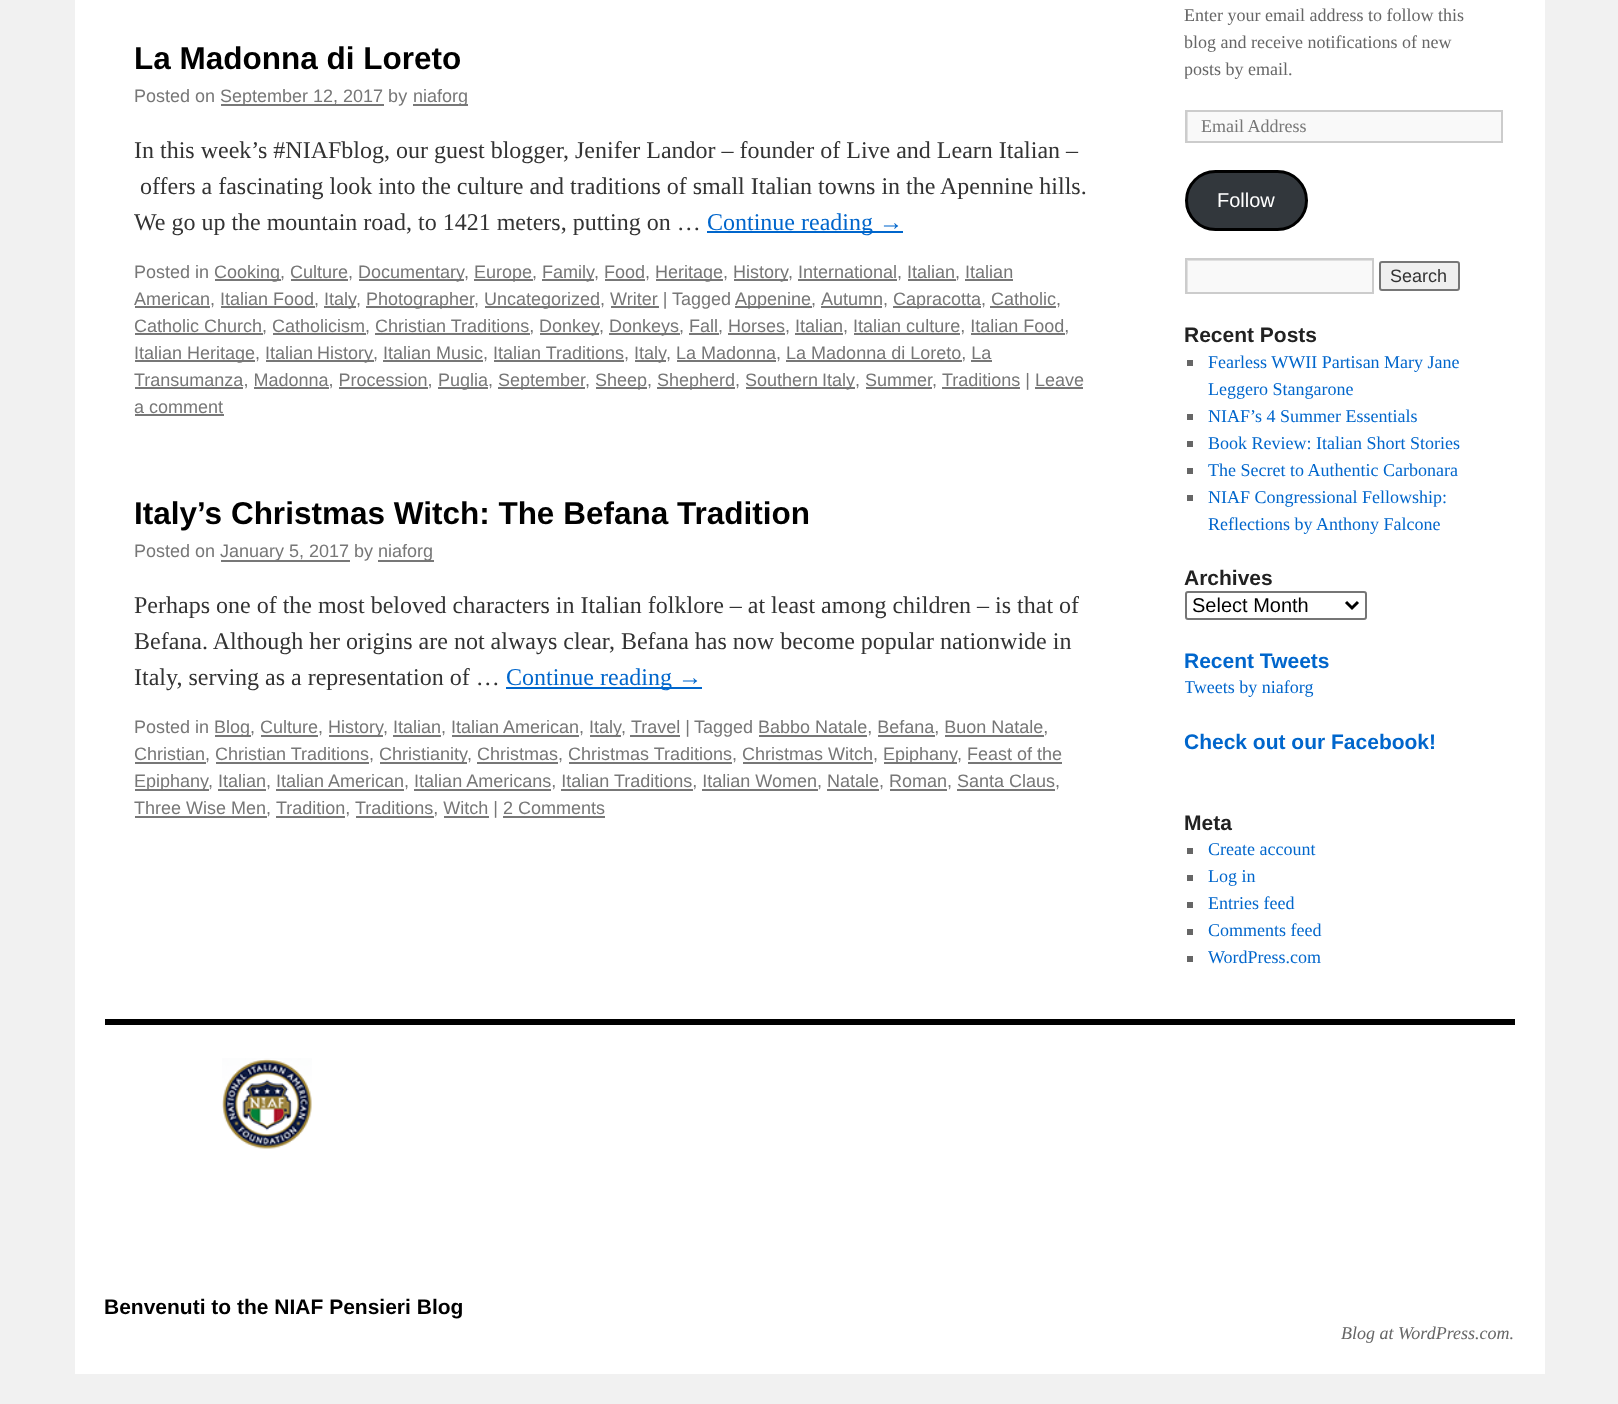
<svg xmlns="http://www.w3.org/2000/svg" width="1618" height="1404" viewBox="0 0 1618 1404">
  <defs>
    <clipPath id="clip1"><rect x="1185" y="0" width="330" height="998"/></clipPath>
    <clipPath id="clip2"><rect x="1187" y="111" width="315" height="30"/></clipPath>
    <clipPath id="clip3"><rect x="1187" y="260" width="186" height="33"/></clipPath>
  </defs>
  <rect width="100%" height="100%" fill="#f1f1f1"/>
  <rect x="75" y="0" width="1470" height="1374" fill="#ffffff"/>
  <text x="134" y="69" font-family="Liberation Sans" font-size="31.5" font-weight="bold" fill="#000000">La Madonna di Loreto</text>
  <text x="134" y="102" font-family="Liberation Sans" font-size="18" fill="#777777">Posted on</text>
  <rect x="221" y="104" width="163" height="2" fill="#777777"/>
  <text x="220" y="102" font-family="Liberation Sans" font-size="18" fill="#777777">September 12, 2017 by</text>
  <rect x="413" y="104" width="55" height="2" fill="#777777"/>
  <text x="413" y="102" font-family="Liberation Sans" font-size="18" fill="#777777">niaforg</text>
  <text x="134" y="158" font-family="Liberation Serif" font-size="24" fill="#333333">In this week’s #NIAFblog, our guest blogger, Jenifer Landor – founder of Live and Learn Italian –</text>
  <text x="140" y="194" font-family="Liberation Serif" font-size="24" fill="#333333">offers a fascinating look into the culture and traditions of small Italian towns in the Apennine hills.</text>
  <text x="134" y="230" font-family="Liberation Serif" font-size="24" fill="#333333">We go up the mountain road, to 1421 meters, putting on …</text>
  <rect x="707" y="231" width="196" height="2" fill="#0066cc"/>
  <text x="707" y="230" font-family="Liberation Serif" font-size="24" fill="#0066cc">Continue reading →</text>
  <text x="134" y="278" font-family="Liberation Sans" font-size="18" fill="#777777">Posted in</text>
  <rect x="215" y="279" width="66" height="2" fill="#777777"/>
  <text x="214" y="278" font-family="Liberation Sans" font-size="18" fill="#777777">Cooking, Culture,</text>
  <rect x="291" y="279" width="57" height="2" fill="#777777"/>
  <rect x="359" y="279" width="105" height="2" fill="#777777"/>
  <text x="358" y="278" font-family="Liberation Sans" font-size="18" fill="#777777">Documentary</text>
  <text x="464" y="278" font-family="Liberation Sans" font-size="18" fill="#777777">,</text>
  <rect x="474" y="279" width="59" height="2" fill="#777777"/>
  <text x="474" y="278" font-family="Liberation Sans" font-size="18" fill="#777777">Europe,</text>
  <rect x="542" y="279" width="52" height="2" fill="#777777"/>
  <text x="542" y="278" font-family="Liberation Sans" font-size="18" fill="#777777">Family</text>
  <text x="594" y="278" font-family="Liberation Sans" font-size="18" fill="#777777">, Food,</text>
  <rect x="605" y="279" width="40" height="2" fill="#777777"/>
  <rect x="656" y="279" width="67" height="2" fill="#777777"/>
  <text x="655" y="278" font-family="Liberation Sans" font-size="18" fill="#777777">Heritage,</text>
  <rect x="734" y="279" width="54" height="2" fill="#777777"/>
  <text x="733" y="278" font-family="Liberation Sans" font-size="18" fill="#777777">History</text>
  <text x="788" y="278" font-family="Liberation Sans" font-size="18" fill="#777777">, International, Italian, Italian</text>
  <rect x="798" y="279" width="99" height="2" fill="#777777"/>
  <rect x="908" y="279" width="48" height="2" fill="#777777"/>
  <rect x="965" y="279" width="48" height="2" fill="#777777"/>
  <rect x="135" y="306" width="75" height="2" fill="#777777"/>
  <text x="134" y="305" font-family="Liberation Sans" font-size="18" fill="#777777">American, Italian Food,</text>
  <rect x="221" y="306" width="94" height="2" fill="#777777"/>
  <rect x="324" y="306" width="32" height="2" fill="#777777"/>
  <text x="324" y="305" font-family="Liberation Sans" font-size="18" fill="#777777">Italy</text>
  <text x="356" y="305" font-family="Liberation Sans" font-size="18" fill="#777777">,</text>
  <rect x="366" y="306" width="108" height="2" fill="#777777"/>
  <text x="366" y="305" font-family="Liberation Sans" font-size="18" fill="#777777">Photographer</text>
  <text x="474" y="305" font-family="Liberation Sans" font-size="18" fill="#777777">,</text>
  <rect x="485" y="306" width="115" height="2" fill="#777777"/>
  <text x="484" y="305" font-family="Liberation Sans" font-size="18" fill="#777777">Uncategorized, Writer |</text>
  <rect x="611" y="306" width="48" height="2" fill="#777777"/>
  <text x="672" y="305" font-family="Liberation Sans" font-size="18" fill="#777777">Tagged</text>
  <rect x="735" y="306" width="77" height="2" fill="#777777"/>
  <text x="735" y="305" font-family="Liberation Sans" font-size="18" fill="#777777">Appenine,</text>
  <rect x="821" y="306" width="61" height="2" fill="#777777"/>
  <text x="821" y="305" font-family="Liberation Sans" font-size="18" fill="#777777">Autumn,</text>
  <rect x="893" y="306" width="88" height="2" fill="#777777"/>
  <text x="893" y="305" font-family="Liberation Sans" font-size="18" fill="#777777">Capracotta, Catholic,</text>
  <rect x="990" y="306" width="66" height="2" fill="#777777"/>
  <rect x="135" y="333" width="128" height="2" fill="#777777"/>
  <text x="134" y="332" font-family="Liberation Sans" font-size="18" fill="#777777">Catholic Church, Catholicism, Christian Traditions,</text>
  <rect x="273" y="333" width="93" height="2" fill="#777777"/>
  <rect x="375" y="333" width="155" height="2" fill="#777777"/>
  <rect x="540" y="333" width="59" height="2" fill="#777777"/>
  <text x="539" y="332" font-family="Liberation Sans" font-size="18" fill="#777777">Donkey</text>
  <text x="599" y="332" font-family="Liberation Sans" font-size="18" fill="#777777">,</text>
  <rect x="609" y="333" width="71" height="2" fill="#777777"/>
  <text x="609" y="332" font-family="Liberation Sans" font-size="18" fill="#777777">Donkeys, Fall, Horses, Italian, Italian culture, Italian Food,</text>
  <rect x="689" y="333" width="30" height="2" fill="#777777"/>
  <rect x="728" y="333" width="57" height="2" fill="#777777"/>
  <rect x="795" y="333" width="48" height="2" fill="#777777"/>
  <rect x="854" y="333" width="106" height="2" fill="#777777"/>
  <rect x="971" y="333" width="94" height="2" fill="#777777"/>
  <rect x="135" y="360" width="120" height="2" fill="#777777"/>
  <text x="134" y="359" font-family="Liberation Sans" font-size="18" fill="#777777">Italian Heritage,</text>
  <rect x="266" y="360" width="108" height="2" fill="#777777"/>
  <text x="265" y="359" word-spacing="-1" font-family="Liberation Sans" font-size="18" fill="#777777">Italian History</text>
  <text x="373" y="359" font-family="Liberation Sans" font-size="18" fill="#777777">, Italian Music, Italian Traditions,</text>
  <rect x="383" y="360" width="100" height="2" fill="#777777"/>
  <rect x="494" y="360" width="130" height="2" fill="#777777"/>
  <rect x="635" y="360" width="31" height="2" fill="#777777"/>
  <text x="634" y="359" font-family="Liberation Sans" font-size="18" fill="#777777">Italy</text>
  <text x="666" y="359" font-family="Liberation Sans" font-size="18" fill="#777777">, La Madonna, La Madonna di Loreto, La</text>
  <rect x="677" y="360" width="99" height="2" fill="#777777"/>
  <rect x="786" y="360" width="176" height="2" fill="#777777"/>
  <rect x="971" y="360" width="21" height="2" fill="#777777"/>
  <rect x="135" y="387" width="108" height="2" fill="#777777"/>
  <text x="134" y="386" font-family="Liberation Sans" font-size="18" fill="#777777">Transumanza, Madonna, Procession,</text>
  <rect x="254" y="387" width="75" height="2" fill="#777777"/>
  <rect x="339" y="387" width="89" height="2" fill="#777777"/>
  <rect x="438" y="387" width="50" height="2" fill="#777777"/>
  <text x="438" y="386" font-family="Liberation Sans" font-size="18" fill="#777777">Puglia,</text>
  <rect x="498" y="387" width="87" height="2" fill="#777777"/>
  <text x="498" y="386" font-family="Liberation Sans" font-size="18" fill="#777777">September</text>
  <text x="585" y="386" font-family="Liberation Sans" font-size="18" fill="#777777">,</text>
  <rect x="596" y="387" width="51" height="2" fill="#777777"/>
  <text x="595" y="386" font-family="Liberation Sans" font-size="18" fill="#777777">Sheep,</text>
  <rect x="657" y="387" width="78" height="2" fill="#777777"/>
  <text x="657" y="386" font-family="Liberation Sans" font-size="18" fill="#777777">Shepherd,</text>
  <rect x="746" y="387" width="109" height="2" fill="#777777"/>
  <text x="745" y="386" word-spacing="-1" font-family="Liberation Sans" font-size="18" fill="#777777">Southern Italy</text>
  <text x="855" y="386" font-family="Liberation Sans" font-size="18" fill="#777777">, Summer</text>
  <text x="932" y="386" font-family="Liberation Sans" font-size="18" fill="#777777">,</text>
  <rect x="866" y="387" width="66" height="2" fill="#777777"/>
  <rect x="942" y="387" width="78" height="2" fill="#777777"/>
  <text x="942" y="386" font-family="Liberation Sans" font-size="18" fill="#777777">Traditions | Leave</text>
  <text x="134" y="413" font-family="Liberation Sans" font-size="18" fill="#777777">a comment</text>
  <rect x="1035" y="387" width="48" height="2" fill="#777777"/>
  <rect x="135" y="414" width="89" height="2" fill="#777777"/>
  <text x="134" y="524" font-family="Liberation Sans" font-size="31.5" font-weight="bold" fill="#000000">Italy’s Christmas Witch: The Befana Tradition</text>
  <text x="134" y="557" font-family="Liberation Sans" font-size="18" fill="#777777">Posted on</text>
  <rect x="221" y="560" width="129" height="2" fill="#777777"/>
  <text x="220" y="557" font-family="Liberation Sans" font-size="18" fill="#777777">January 5, 2017 by</text>
  <rect x="378" y="560" width="56" height="2" fill="#777777"/>
  <text x="378" y="557" font-family="Liberation Sans" font-size="18" fill="#777777">niaforg</text>
  <text x="134" y="613" font-family="Liberation Serif" font-size="24" fill="#333333">Perhaps one of the most beloved characters in Italian folklore – at least among children – is that of</text>
  <text x="134" y="649" font-family="Liberation Serif" font-size="24" fill="#333333">Befana. Although her origins are not always clear, Befana has now become popular nationwide in</text>
  <text x="134" y="685" font-family="Liberation Serif" font-size="24" fill="#333333">Italy, serving as a representation of …</text>
  <rect x="506" y="687" width="196" height="2" fill="#0066cc"/>
  <text x="506" y="685" font-family="Liberation Serif" font-size="24" fill="#0066cc">Continue reading →</text>
  <text x="134" y="733" font-family="Liberation Sans" font-size="18" fill="#777777">Posted in</text>
  <rect x="215" y="735" width="36" height="2" fill="#777777"/>
  <text x="214" y="733" font-family="Liberation Sans" font-size="18" fill="#777777">Blog, Culture,</text>
  <rect x="261" y="735" width="57" height="2" fill="#777777"/>
  <rect x="329" y="735" width="54" height="2" fill="#777777"/>
  <text x="328" y="733" font-family="Liberation Sans" font-size="18" fill="#777777">History</text>
  <text x="383" y="733" font-family="Liberation Sans" font-size="18" fill="#777777">, Italian, Italian American,</text>
  <rect x="393" y="735" width="48" height="2" fill="#777777"/>
  <rect x="452" y="735" width="127" height="2" fill="#777777"/>
  <rect x="590" y="735" width="31" height="2" fill="#777777"/>
  <text x="589" y="733" font-family="Liberation Sans" font-size="18" fill="#777777">Italy</text>
  <text x="621" y="733" font-family="Liberation Sans" font-size="18" fill="#777777">,</text>
  <rect x="630" y="735" width="50" height="2" fill="#777777"/>
  <text x="631" y="733" font-family="Liberation Sans" font-size="18" fill="#777777">Travel |</text>
  <text x="694" y="733" font-family="Liberation Sans" font-size="18" fill="#777777">Tagged Babbo Natale, Befana, Buon Natale,</text>
  <rect x="759" y="735" width="108" height="2" fill="#777777"/>
  <rect x="878" y="735" width="57" height="2" fill="#777777"/>
  <rect x="945" y="735" width="99" height="2" fill="#777777"/>
  <rect x="135" y="762" width="71" height="2" fill="#777777"/>
  <text x="134" y="760" font-family="Liberation Sans" font-size="18" fill="#777777">Christian, Christian Traditions,</text>
  <rect x="216" y="762" width="153" height="2" fill="#777777"/>
  <rect x="380" y="762" width="87" height="2" fill="#777777"/>
  <text x="379" y="760" font-family="Liberation Sans" font-size="18" fill="#777777">Christianity</text>
  <text x="467" y="760" font-family="Liberation Sans" font-size="18" fill="#777777">, Christmas, Christmas Traditions, Christmas Witch,</text>
  <rect x="477" y="762" width="81" height="2" fill="#777777"/>
  <rect x="569" y="762" width="163" height="2" fill="#777777"/>
  <rect x="743" y="762" width="130" height="2" fill="#777777"/>
  <rect x="884" y="762" width="73" height="2" fill="#777777"/>
  <text x="883" y="760" font-family="Liberation Sans" font-size="18" fill="#777777">Epiphany</text>
  <text x="957" y="760" font-family="Liberation Sans" font-size="18" fill="#777777">, Feast of the</text>
  <rect x="968" y="762" width="94" height="2" fill="#777777"/>
  <rect x="135" y="789" width="74" height="2" fill="#777777"/>
  <text x="134" y="787" font-family="Liberation Sans" font-size="18" fill="#777777">Epiphany</text>
  <text x="208" y="787" font-family="Liberation Sans" font-size="18" fill="#777777">, Italian, Italian American, Italian Americans, Italian Traditions, Italian Women, Natale, Roman, Santa Claus,</text>
  <rect x="218" y="789" width="48" height="2" fill="#777777"/>
  <rect x="276" y="789" width="128" height="2" fill="#777777"/>
  <rect x="414" y="789" width="137" height="2" fill="#777777"/>
  <rect x="561" y="789" width="132" height="2" fill="#777777"/>
  <rect x="702" y="789" width="116" height="2" fill="#777777"/>
  <rect x="827" y="789" width="52" height="2" fill="#777777"/>
  <rect x="890" y="789" width="57" height="2" fill="#777777"/>
  <rect x="957" y="789" width="98" height="2" fill="#777777"/>
  <rect x="135" y="816" width="132" height="2" fill="#777777"/>
  <text x="134" y="814" font-family="Liberation Sans" font-size="18" fill="#777777">Three Wise Men,</text>
  <rect x="276" y="816" width="69" height="2" fill="#777777"/>
  <text x="276" y="814" font-family="Liberation Sans" font-size="18" fill="#777777">Tradition,</text>
  <rect x="356" y="816" width="78" height="2" fill="#777777"/>
  <text x="355" y="814" font-family="Liberation Sans" font-size="18" fill="#777777">Traditions, Witch | 2 Comments</text>
  <rect x="444" y="816" width="45" height="2" fill="#777777"/>
  <rect x="503" y="816" width="102" height="2" fill="#777777"/>
  <text x="1184" y="21" font-family="Liberation Serif" font-size="18" fill="#666666">Enter your email address to follow this</text>
  <text x="1184" y="48" font-family="Liberation Serif" font-size="18" fill="#666666">blog and receive notifications of new</text>
  <g clip-path="url(#clip1)">
    <text x="1184" y="75" font-family="Liberation Serif" font-size="18" fill="#666666">posts by email.</text>
  </g>
  <rect x="1188" y="112" width="313" height="29" fill="#f9f9f9"/>
  <g clip-path="url(#clip2)">
    <path d="M1038-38H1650V290H1038ZM1188 112H1503V142H1188Z" fill="#e0e0e0" fill-rule="evenodd"/>
  </g>
  <rect x="1186" y="111" width="316" height="31" fill="none" stroke="#cccccc" stroke-width="2"/>
  <text x="1201" y="132" font-family="Liberation Serif" font-size="18" fill="#777777">Email Address</text>
  <rect x="1186.5" y="171.5" width="120" height="58" rx="29" fill="#32373c" stroke="#000000" stroke-width="3"/>
  <text x="1217" y="207" font-family="Liberation Sans" font-size="20" fill="#ffffff">Follow</text>
  <rect x="1188" y="261" width="184" height="31" fill="#f9f9f9"/>
  <g clip-path="url(#clip3)">
    <path d="M1038 111H1521V441H1038ZM1188 261H1374V294H1188Z" fill="#e0e0e0" fill-rule="evenodd"/>
  </g>
  <rect x="1186" y="259" width="187" height="34" fill="none" stroke="#cccccc" stroke-width="2"/>
  <rect x="1380" y="262" width="79" height="28" rx="2" fill="#efefef" stroke="#767676" stroke-width="2"/>
  <text x="1390" y="282" font-family="Liberation Sans" font-size="18" fill="#333333">Search</text>
  <text x="1184" y="342" font-family="Liberation Sans" font-size="21" font-weight="bold" fill="#222222">Recent Posts</text>
  <rect x="1187" y="360" width="6" height="6" fill="#666666"/>
  <text x="1208" y="368" font-family="Liberation Serif" font-size="18" fill="#0066cc">Fearless WWII Partisan Mary Jane</text>
  <text x="1208" y="395" font-family="Liberation Serif" font-size="18" fill="#0066cc">Leggero Stangarone</text>
  <rect x="1187" y="414" width="6" height="6" fill="#666666"/>
  <text x="1208" y="422" font-family="Liberation Serif" font-size="18" fill="#0066cc">NIAF’s 4 Summer Essentials</text>
  <rect x="1187" y="441" width="6" height="6" fill="#666666"/>
  <text x="1208" y="449" font-family="Liberation Serif" font-size="18" fill="#0066cc">Book Review: Italian Short Stories</text>
  <rect x="1187" y="468" width="6" height="6" fill="#666666"/>
  <text x="1208" y="476" font-family="Liberation Serif" font-size="18" fill="#0066cc">The Secret to Authentic Carbonara</text>
  <rect x="1187" y="495" width="6" height="6" fill="#666666"/>
  <text x="1208" y="503" font-family="Liberation Serif" font-size="18" fill="#0066cc">NIAF Congressional Fellowship:</text>
  <text x="1208" y="530" font-family="Liberation Serif" font-size="18" fill="#0066cc">Reflections by Anthony Falcone</text>
  <text x="1184" y="585" font-family="Liberation Sans" font-size="21" font-weight="bold" fill="#222222">Archives</text>
  <rect x="1186" y="592" width="180" height="27" rx="2" fill="none" stroke="#767676" stroke-width="2"/>
  <path d="M1346 602L1352 608L1358 602" fill="none" stroke="#000000" stroke-width="3"/>
  <text x="1192" y="612" font-family="Liberation Sans" font-size="20" fill="#000000">Select Month</text>
  <text x="1184" y="668" font-family="Liberation Sans" font-size="21" font-weight="bold" fill="#0066cc">Recent Tweets</text>
  <g clip-path="url(#clip1)">
    <text x="1184" y="693" font-family="Liberation Serif" font-size="18" fill="#0066cc">Tweets by niaforg</text>
  </g>
  <text x="1184" y="749" font-family="Liberation Sans" font-size="21" font-weight="bold" fill="#0066cc">Check out our Facebook!</text>
  <text x="1184" y="830" font-family="Liberation Sans" font-size="21" font-weight="bold" fill="#222222">Meta</text>
  <rect x="1187" y="848" width="6" height="6" fill="#666666"/>
  <text x="1208" y="855" font-family="Liberation Serif" font-size="18" fill="#0066cc">Create account</text>
  <rect x="1187" y="875" width="6" height="6" fill="#666666"/>
  <text x="1208" y="882" font-family="Liberation Serif" font-size="18" fill="#0066cc">Log in</text>
  <rect x="1187" y="902" width="6" height="6" fill="#666666"/>
  <text x="1208" y="909" font-family="Liberation Serif" font-size="18" fill="#0066cc">Entries feed</text>
  <rect x="1187" y="929" width="6" height="6" fill="#666666"/>
  <text x="1208" y="936" font-family="Liberation Serif" font-size="18" fill="#0066cc">Comments feed</text>
  <rect x="1187" y="956" width="6" height="6" fill="#666666"/>
  <text x="1208" y="963" font-family="Liberation Serif" font-size="18" fill="#0066cc">WordPress.com</text>
  <rect x="105" y="1019" width="1410" height="6" fill="#000000"/>
  <image x="222" y="1058" width="90" height="91" href="img1.png"/>
  <text x="104" y="1314" font-family="Liberation Sans" font-size="21" font-weight="bold" fill="#000000">Benvenuti to the NIAF Pensieri Blog</text>
  <text x="1341" y="1339" font-family="Liberation Serif" font-size="18" font-style="italic" fill="#666666">Blog at WordPress.com.</text>
</svg>
